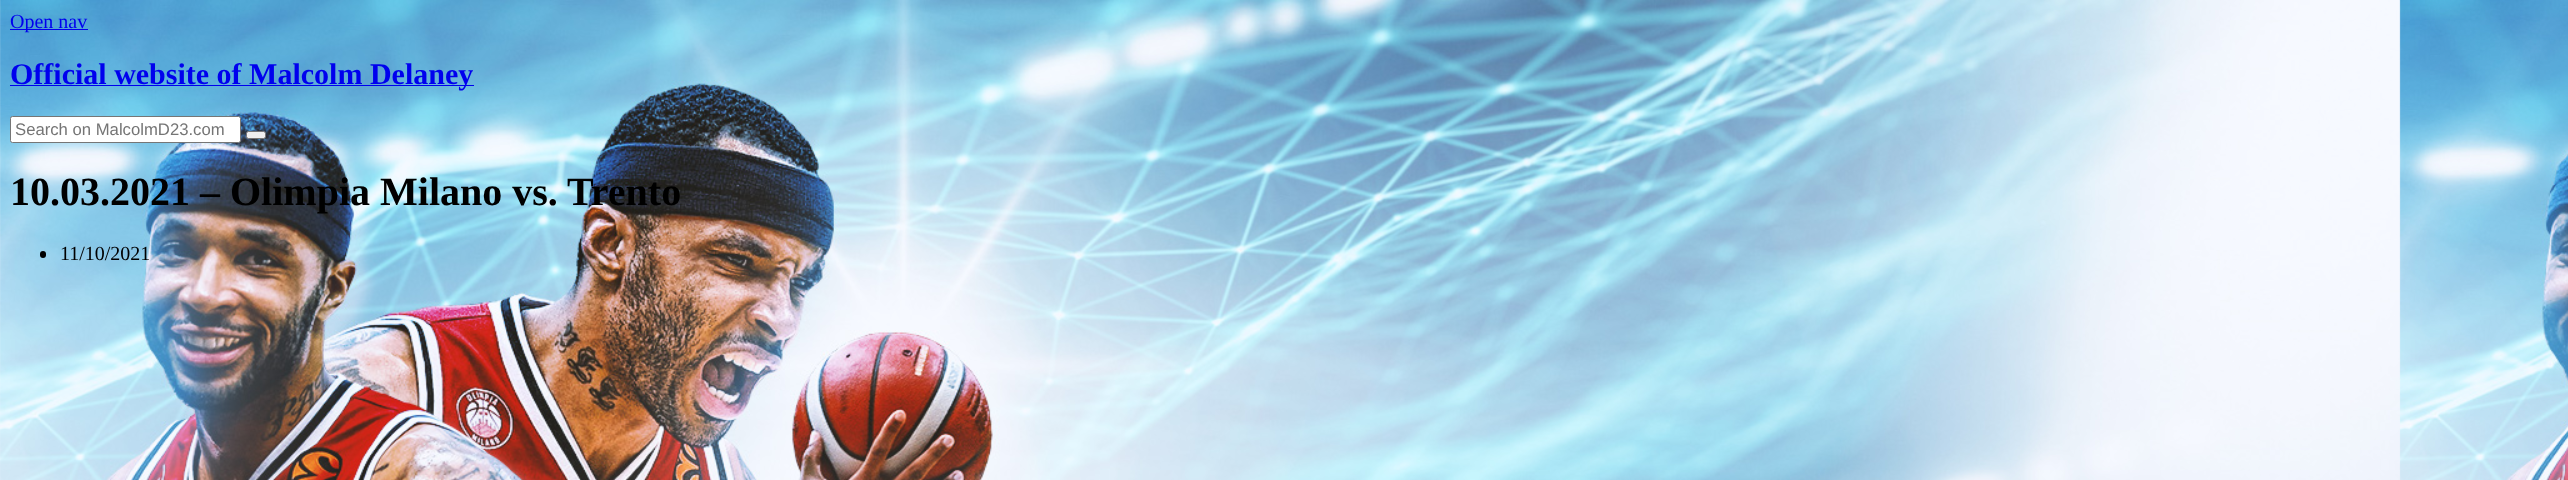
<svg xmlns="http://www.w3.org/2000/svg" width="2568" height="480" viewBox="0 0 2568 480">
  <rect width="100%" height="100%" fill="#ffffff"/>
  <image x="0" y="0" width="2568" height="480" href="img1.png"/>
  <rect x="10" y="29" width="78" height="1" fill="#0000ee"/>
  <text x="10" y="28" font-family="Liberation Serif" font-size="20" fill="#0000ee">Open nav</text>
  <rect x="10" y="85" width="464" height="1" fill="#0000ee"/>
  <text x="10" y="84" font-family="Liberation Serif" font-size="30" font-weight="bold" fill="#0000ee">Official website of Malcolm Delaney</text>
  <rect x="10.5" y="116.5" width="230" height="26" rx="2" fill="#ffffff" stroke="#767676"/>
  <text x="15" y="135" font-family="Liberation Sans" font-size="16.7" fill="#757575">Search on MalcolmD23.com</text>
  <rect x="246.5" y="131.5" width="19" height="7" rx="2" fill="#efefef" stroke="#767676"/>
  <text x="10" y="205" font-family="Liberation Serif" font-size="40" font-weight="bold" fill="#000000">10.03.2021 – Olimpia Milano vs. Trento</text>
  <rect x="40" y="251" width="6" height="7" rx="3" fill="#000000"/>
  <text x="60" y="260" font-family="Liberation Serif" font-size="20" fill="#000000">11/10/2021</text>
</svg>
